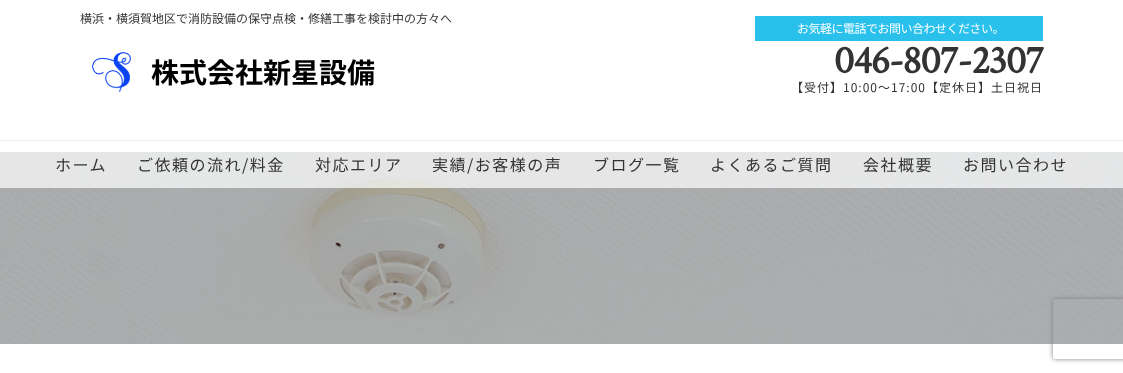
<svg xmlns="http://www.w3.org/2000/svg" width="1123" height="373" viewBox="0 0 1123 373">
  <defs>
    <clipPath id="clip1"><path d="M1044 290H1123V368H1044ZM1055 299H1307C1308 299 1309 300 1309 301V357C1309 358 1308 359 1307 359H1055C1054 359 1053 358 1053 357V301C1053 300 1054 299 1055 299Z" clip-rule="evenodd"/></clipPath>
    <filter id="blur1" x="-50%" y="-200%" width="200%" height="500%"><feGaussianBlur stdDeviation="2.5"/></filter>
  </defs>
  <rect width="100%" height="100%" fill="#ffffff"/>
  <rect x="0" y="140" width="1123" height="1" fill="#cecece"/>
  <text x="80" y="23" font-family="Noto Sans JP" font-size="12" fill="#333333">横浜・横須賀地区で消防設備の保守点検・修繕工事を検討中の方々へ</text>
  <image x="92" y="52" width="39" height="40" href="img1.png"/>
  <text x="151" y="83" font-family="Noto Sans JP" font-size="28" font-weight="bold" fill="#000000">株式会社新星設備</text>
  <rect x="755" y="16" width="288" height="25" fill="#29c1ec"/>
  <text x="797" y="33" font-family="Noto Sans JP" font-size="12" letter-spacing="-0.5" fill="#ffffff">お気軽に電話でお問い合わせください。</text>
  <text x="834" y="73" font-family="Crimson Text" font-size="40" font-weight="bold" letter-spacing="-1" fill="#333333">046-807-2307</text>
  <text x="791" y="92" font-family="Noto Sans JP" font-size="12" letter-spacing="1" fill="#333333">【受付】10:00～17:00【定休日】土日祝日</text>
  <image x="0" y="152" width="1123" height="192" href="img2.png"/>
  <rect x="0" y="140" width="1123" height="48" fill="#ffffff" fill-opacity="0.7"/>
  <text x="55" y="171" font-family="Noto Sans JP" font-size="16" letter-spacing="1.5" fill="#333333">ホーム</text>
  <text x="137" y="171" font-family="Noto Sans JP" font-size="16" letter-spacing="1.5" fill="#333333">ご依頼の流れ/料金</text>
  <text x="315" y="171" font-family="Noto Sans JP" font-size="16" letter-spacing="1.5" fill="#333333">対応エリア</text>
  <text x="432" y="171" font-family="Noto Sans JP" font-size="16" letter-spacing="1.5" fill="#333333">実績/お客様の声</text>
  <text x="593" y="171" font-family="Noto Sans JP" font-size="16" letter-spacing="1.5" fill="#333333">ブログ一覧</text>
  <text x="710" y="171" font-family="Noto Sans JP" font-size="16" letter-spacing="1.5" fill="#333333">よくあるご質問</text>
  <text x="863" y="171" font-family="Noto Sans JP" font-size="16" letter-spacing="1.5" fill="#333333">会社概要</text>
  <text x="963" y="171" font-family="Noto Sans JP" font-size="16" letter-spacing="1.5" fill="#333333">お問い合わせ</text>
  <g clip-path="url(#clip1)">
    <rect x="1053" y="299" width="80" height="60" rx="2" fill="#808080" filter="url(#blur1)"/>
  </g>
</svg>
